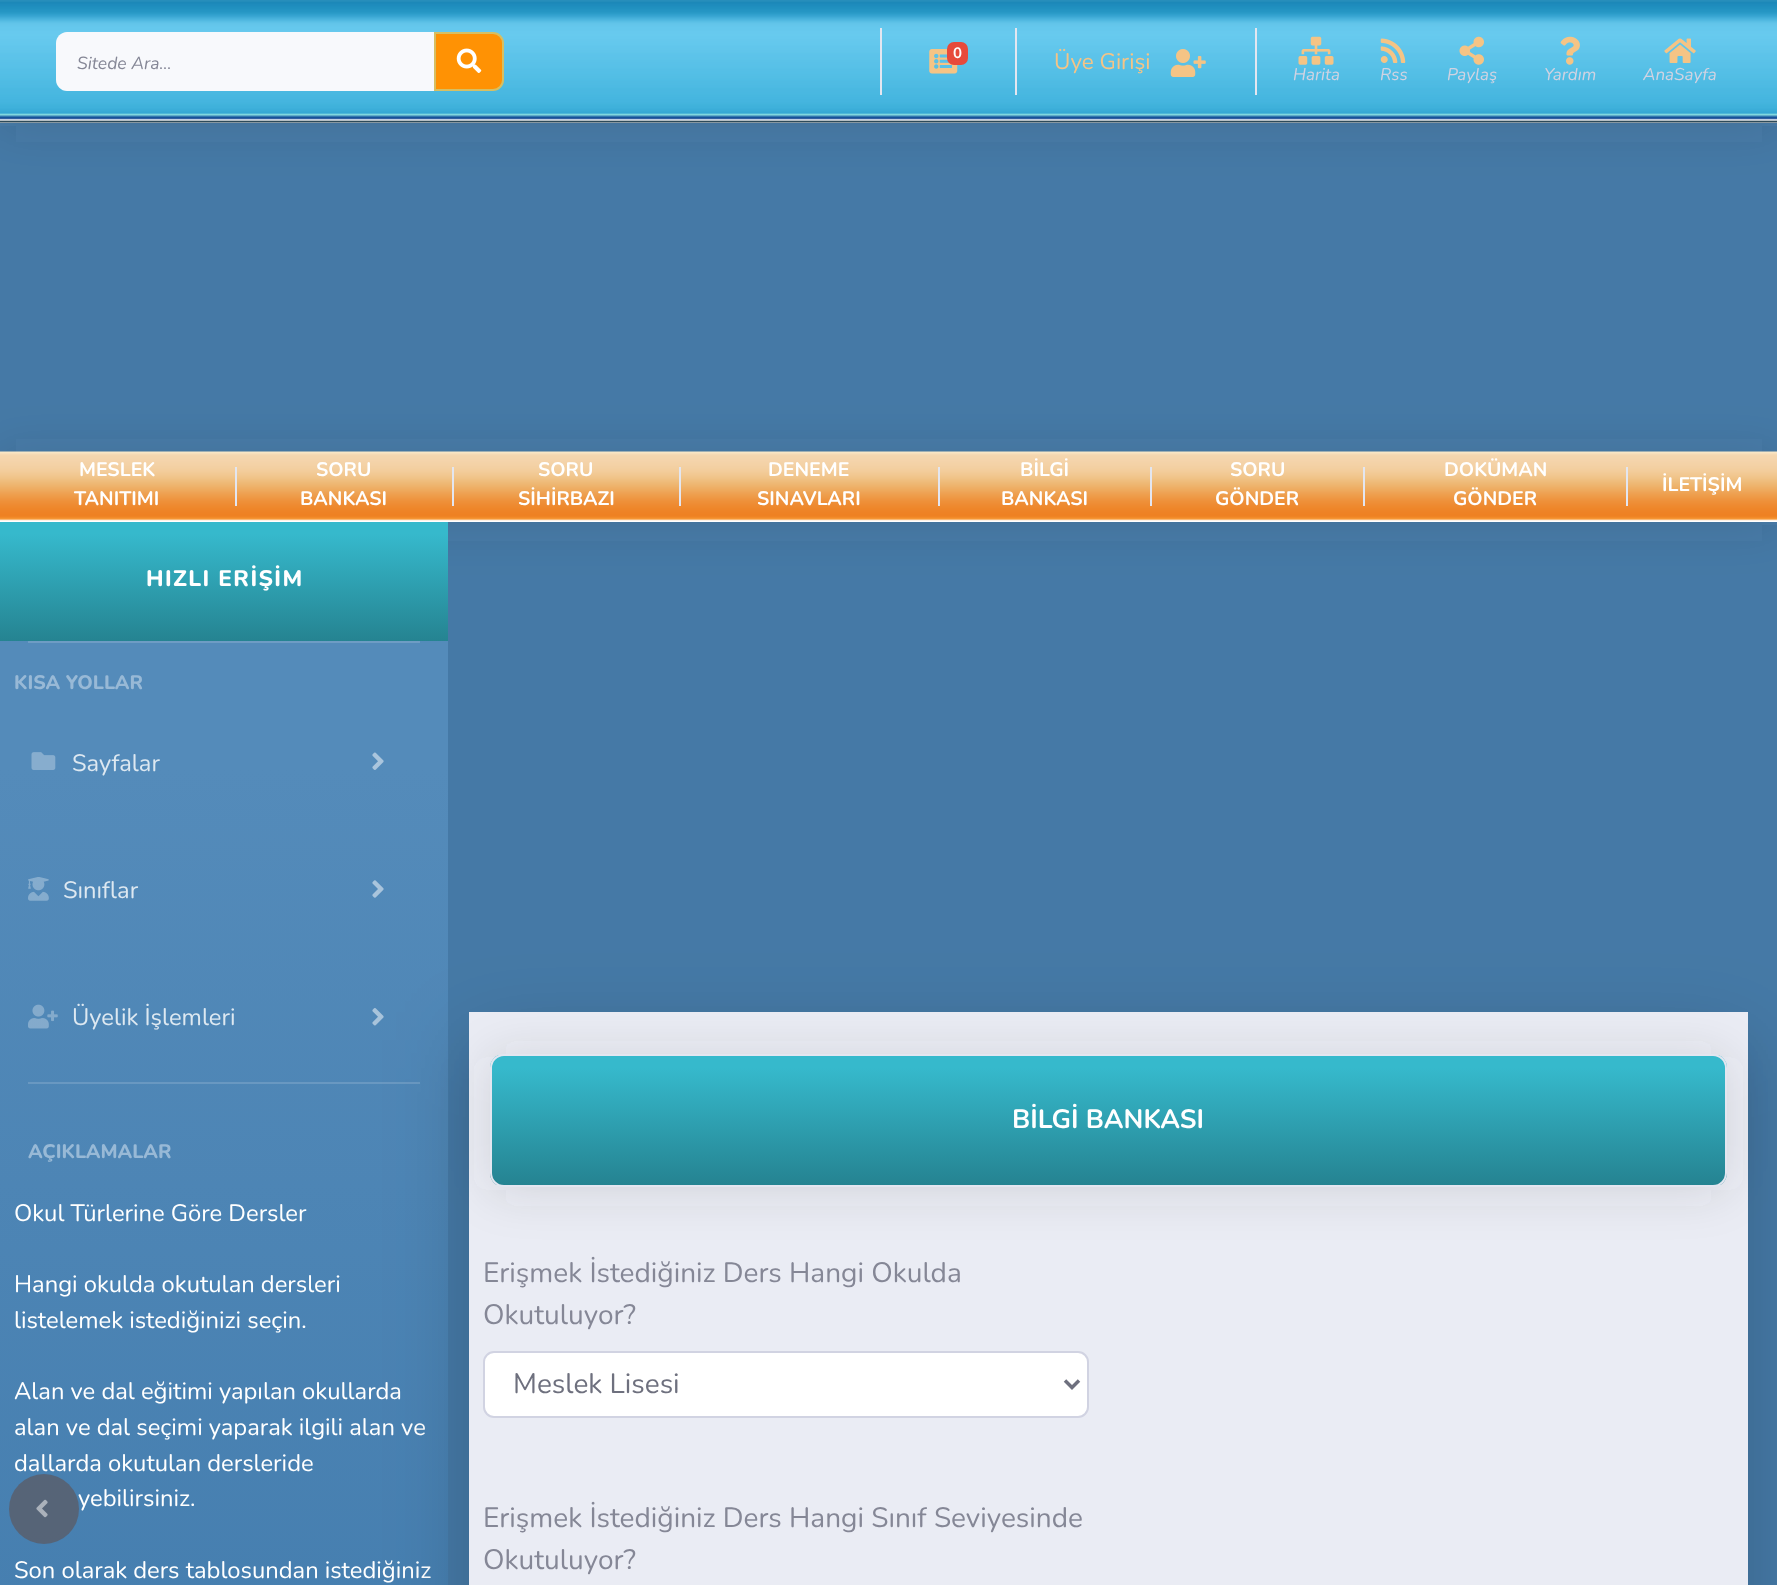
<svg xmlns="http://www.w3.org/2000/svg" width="1777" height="1585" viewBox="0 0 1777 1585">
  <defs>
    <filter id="blur1" x="-50%" y="-200%" width="200%" height="500%"><feGaussianBlur stdDeviation="24.5"/></filter>
    <linearGradient id="g1" gradientUnits="userSpaceOnUse" x1="224" y1="522" x2="224" y2="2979"><stop offset="0.1" stop-color="#548bba"/><stop offset="1" stop-color="#2f6b9f"/></linearGradient>
    <linearGradient id="g2" gradientUnits="userSpaceOnUse" x1="224" y1="522" x2="224" y2="641"><stop offset="0.1" stop-color="#36b9cc"/><stop offset="1" stop-color="#258391"/></linearGradient>
    <filter id="blur2" x="-50%" y="-200%" width="200%" height="500%"><feGaussianBlur stdDeviation="42"/></filter>
    <clipPath id="clip1"><rect x="490" y="1054" width="1237" height="133" rx="14"/></clipPath>
    <linearGradient id="g3" gradientUnits="userSpaceOnUse" x1="1109" y1="1055" x2="1109" y2="1185"><stop offset="0.1" stop-color="#36b9cc"/><stop offset="1" stop-color="#258391"/></linearGradient>
  </defs>
  <rect width="100%" height="100%" fill="#4579a6"/>
  <rect x="0" y="4" width="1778" height="122" fill="#3a3b45" fill-opacity="0.15" filter="url(#blur1)"/>
  <rect x="0" y="122" width="1777" height="1" fill="#ffffff"/>
  <image x="0" y="0" width="1777" height="123" href="img1.png"/>
  <path d="M67 32H436V91H67C61 91 56 86 56 80V43C56 37 61 32 67 32Z" fill="#f8f9fc"/>
  <text x="77" y="69" font-family="Nunito" font-size="17.5" font-style="italic" fill="#858796">Sitede Ara...</text>
  <path d="M435 33H493C498.5 33 503 37.5 503 43V80C503 85.5 498.5 90 493 90H435Z" fill="#ff9204" stroke="#d6bf63" stroke-width="2"/>
  <image x="456" y="48" width="26" height="25" href="img2.png"/>
  <rect x="880" y="28" width="2" height="67" fill="#e3e6f0"/>
  <image x="929" y="49" width="29" height="25" href="img3.png"/>
  <rect x="947" y="42" width="21" height="23" rx="7" fill="#e74a3b"/>
  <text x="953" y="58" font-family="Nunito" font-size="15" font-weight="bold" fill="#ffffff">0</text>
  <rect x="1015" y="28" width="2" height="67" fill="#e3e6f0"/>
  <text x="1054" y="69" font-family="Nunito" font-size="22.5" fill="#f5c485">Üye Girişi</text>
  <image x="1170" y="49" width="36" height="28" href="img4.png"/>
  <rect x="1255" y="28" width="2" height="67" fill="#e3e6f0"/>
  <image x="1298" y="36" width="36" height="29" href="img5.png"/>
  <text x="1293" y="80" font-family="Nunito" font-size="17" font-style="italic" fill="#d1d3e2">Harita</text>
  <image x="1380" y="38" width="26" height="25" href="img6.png"/>
  <text x="1380" y="80" font-family="Nunito" font-size="17" font-style="italic" fill="#d1d3e2">Rss</text>
  <image x="1459" y="36" width="25" height="29" href="img7.png"/>
  <text x="1447" y="80" font-family="Nunito" font-size="17" font-style="italic" fill="#d1d3e2">Paylaş</text>
  <image x="1560" y="36" width="20" height="29" href="img8.png"/>
  <text x="1544" y="80" font-family="Nunito" font-size="17" font-style="italic" fill="#d1d3e2">Yardım</text>
  <image x="1664" y="38" width="32" height="25" href="img9.png"/>
  <text x="1643" y="80" font-family="Nunito" font-size="17" font-style="italic" fill="#d1d3e2">AnaSayfa</text>
  <rect x="0" y="455" width="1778" height="70" fill="#3a3b45" fill-opacity="0.15" filter="url(#blur1)"/>
  <rect x="0" y="521" width="1777" height="1" fill="#ffffff"/>
  <image x="0" y="451" width="1777" height="70" href="img10.png"/>
  <text x="79" y="476" font-family="Nunito" font-size="19.5" font-weight="bold" fill="#ffffff">MESLEK</text>
  <text x="74" y="505" font-family="Nunito" font-size="19.5" font-weight="bold" fill="#ffffff">TANITIMI</text>
  <rect x="235" y="467" width="2" height="39" fill="#e3e6f0"/>
  <text x="316" y="476" font-family="Nunito" font-size="19.5" font-weight="bold" fill="#ffffff">SORU</text>
  <text x="300" y="505" font-family="Nunito" font-size="19.5" font-weight="bold" fill="#ffffff">BANKASI</text>
  <rect x="452" y="467" width="2" height="39" fill="#e3e6f0"/>
  <text x="538" y="476" font-family="Nunito" font-size="19.5" font-weight="bold" fill="#ffffff">SORU</text>
  <text x="518" y="505" font-family="Nunito" font-size="19.5" font-weight="bold" fill="#ffffff">SİHİRBAZI</text>
  <rect x="679" y="467" width="2" height="39" fill="#e3e6f0"/>
  <text x="768" y="476" font-family="Nunito" font-size="19.5" font-weight="bold" fill="#ffffff">DENEME</text>
  <text x="757" y="505" font-family="Nunito" font-size="19.5" font-weight="bold" fill="#ffffff">SINAVLARI</text>
  <rect x="938" y="467" width="2" height="39" fill="#e3e6f0"/>
  <text x="1020" y="476" font-family="Nunito" font-size="19.5" font-weight="bold" fill="#ffffff">BİLGİ</text>
  <text x="1001" y="505" font-family="Nunito" font-size="19.5" font-weight="bold" fill="#ffffff">BANKASI</text>
  <rect x="1150" y="467" width="2" height="39" fill="#e3e6f0"/>
  <text x="1230" y="476" font-family="Nunito" font-size="19.5" font-weight="bold" fill="#ffffff">SORU</text>
  <text x="1215" y="505" font-family="Nunito" font-size="19.5" font-weight="bold" fill="#ffffff">GÖNDER</text>
  <rect x="1363" y="467" width="2" height="39" fill="#e3e6f0"/>
  <text x="1444" y="476" font-family="Nunito" font-size="19.5" font-weight="bold" fill="#ffffff">DOKÜMAN</text>
  <text x="1453" y="505" font-family="Nunito" font-size="19.5" font-weight="bold" fill="#ffffff">GÖNDER</text>
  <rect x="1626" y="467" width="2" height="39" fill="#e3e6f0"/>
  <text x="1662" y="491" font-family="Nunito" font-size="19.5" font-weight="bold" fill="#ffffff">İLETİŞİM</text>
  <rect x="0" y="641" width="448" height="944" fill="url(#g1)"/>
  <rect x="0" y="522" width="448" height="119" fill="url(#g2)"/>
  <text x="146" y="586" font-family="Nunito" font-size="22.5" font-weight="800" letter-spacing="1.4" fill="#ffffff">HIZLI ERİŞİM</text>
  <rect x="28" y="641" width="392" height="2" fill="#6e9cc4"/>
  <text x="14" y="689" font-family="Nunito" font-size="19.5" font-weight="800" fill="#98b9d6">KISA YOLLAR</text>
  <image x="31" y="752" width="25" height="18" href="img11.png"/>
  <text x="72" y="771" font-family="Nunito" font-size="23.75" fill="#dde8f1">Sayfalar</text>
  <image x="372" y="752" width="12" height="18" href="img12.png"/>
  <image x="28" y="877" width="21" height="24" href="img13.png"/>
  <text x="63" y="898" font-family="Nunito" font-size="23.75" fill="#dde8f1">Sınıflar</text>
  <image x="372" y="880" width="12" height="18" href="img14.png"/>
  <image x="28" y="1004" width="30" height="25" href="img15.png"/>
  <text x="72" y="1025" font-family="Nunito" font-size="23.75" fill="#dde8f1">Üyelik İşlemleri</text>
  <image x="372" y="1008" width="12" height="18" href="img16.png"/>
  <rect x="28" y="1082" width="392" height="2" fill="#6998c1"/>
  <text x="28" y="1158" font-family="Nunito" font-size="19.5" font-weight="800" fill="#98b9d6">AÇIKLAMALAR</text>
  <text x="14" y="1221" font-family="Nunito" font-size="23.75" fill="#ffffff">Okul Türlerine Göre Dersler</text>
  <text x="14" y="1292" font-family="Nunito" font-size="23.75" fill="#ffffff">Hangi okulda okutulan dersleri</text>
  <text x="14" y="1328" font-family="Nunito" font-size="23.75" fill="#ffffff">listelemek istediğinizi seçin.</text>
  <text x="14" y="1399" font-family="Nunito" font-size="23.75" fill="#ffffff">Alan ve dal eğitimi yapılan okullarda</text>
  <text x="14" y="1435" font-family="Nunito" font-size="23.75" fill="#ffffff">alan ve dal seçimi yaparak ilgili alan ve</text>
  <text x="14" y="1471" font-family="Nunito" font-size="23.75" fill="#ffffff">dallarda okutulan dersleride</text>
  <text x="78" y="1506" font-family="Nunito" font-size="23.75" fill="#ffffff">yebilirsiniz.</text>
  <text x="14" y="1578" font-family="Nunito" font-size="23.75" fill="#ffffff">Son olarak ders tablosundan istediğiniz</text>
  <circle cx="44" cy="1509" r="35" fill="#5a5c69" fill-opacity="0.8"/>
  <image x="36" y="1499" width="12" height="19" href="img17.png"/>
  <rect x="469" y="1040" width="1279" height="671" fill="#000000" fill-opacity="0.18" filter="url(#blur2)"/>
  <rect x="469" y="1012" width="1279" height="573" fill="#eaecf4"/>
  <rect x="490" y="1057" width="1237" height="133" rx="14" fill="#3a3b45" fill-opacity="0.15" filter="url(#blur1)"/>
  <g clip-path="url(#clip1)">
    <rect x="490" y="1055" width="1237" height="130" fill="url(#g3)"/>
  </g>
  <rect x="491" y="1055" width="1235" height="131" rx="13" fill="none" stroke="#e3e6f0" stroke-width="2"/>
  <text x="1012" y="1128" font-family="Nunito" font-size="26.5" font-weight="bold" fill="#ffffff">BİLGİ BANKASI</text>
  <text x="483" y="1282" font-family="Nunito" font-size="28" fill="#858796">Erişmek İstediğiniz Ders Hangi Okulda</text>
  <text x="483" y="1324" font-family="Nunito" font-size="28" fill="#858796">Okutuluyor?</text>
  <rect x="484" y="1352" width="604" height="65" rx="10" fill="#ffffff" stroke="#d1d3e2" stroke-width="2"/>
  <path d="M1065 1380.5L1072 1387.5L1079 1380.5" fill="none" stroke="#6e707e" stroke-width="3.5"/>
  <text x="513" y="1393" font-family="Nunito" font-size="28" fill="#6e707e">Meslek Lisesi</text>
  <text x="483" y="1527" font-family="Nunito" font-size="28" fill="#858796">Erişmek İstediğiniz Ders Hangi Sınıf Seviyesinde</text>
  <text x="483" y="1569" font-family="Nunito" font-size="28" fill="#858796">Okutuluyor?</text>
</svg>
